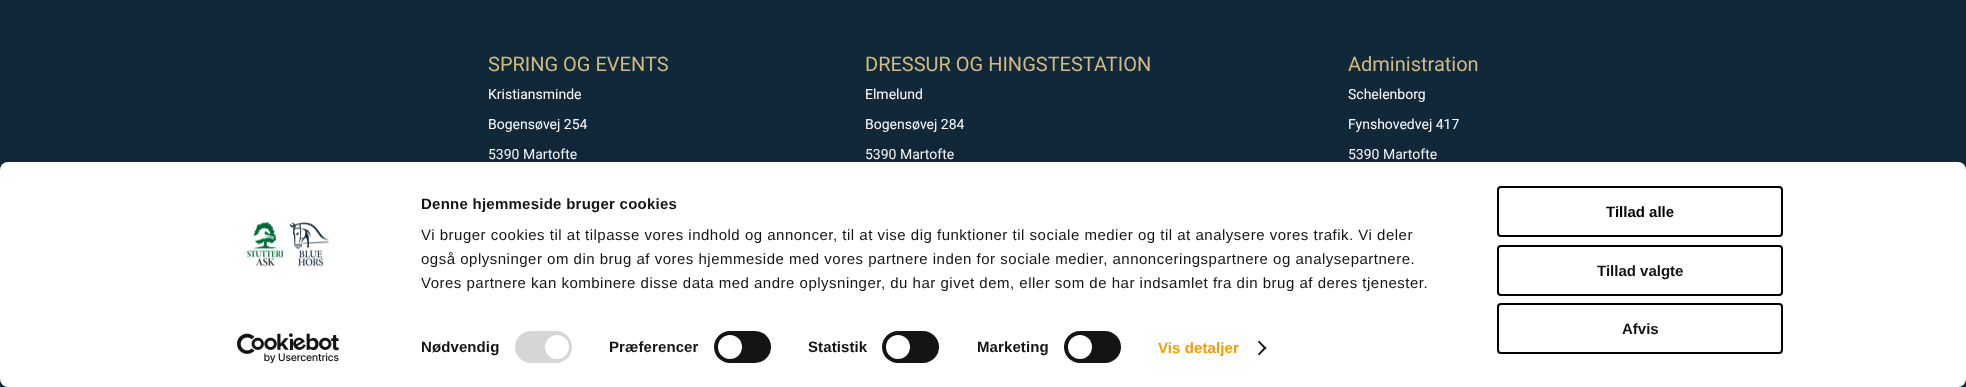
<svg xmlns="http://www.w3.org/2000/svg" width="1966" height="387" viewBox="0 0 1966 387">
  <defs>
    <filter id="blur1" x="-50%" y="-200%" width="200%" height="500%"><feGaussianBlur stdDeviation="35"/></filter>
  </defs>
  <rect width="100%" height="100%" fill="#11283a"/>
  <text x="488" y="71" font-family="Roboto" font-size="20" fill="#cfbb7d">SPRING OG EVENTS</text>
  <text x="488" y="99" font-family="Roboto" font-size="14" fill="#ffffff">Kristiansminde</text>
  <text x="488" y="129" font-family="Roboto" font-size="14" fill="#ffffff">Bogensøvej 254</text>
  <text x="488" y="159" font-family="Roboto" font-size="14" fill="#ffffff">5390 Martofte</text>
  <text x="865" y="71" font-family="Roboto" font-size="20" fill="#cfbb7d">DRESSUR OG HINGSTESTATION</text>
  <text x="865" y="99" font-family="Roboto" font-size="14" fill="#ffffff">Elmelund</text>
  <text x="865" y="129" font-family="Roboto" font-size="14" fill="#ffffff">Bogensøvej 284</text>
  <text x="865" y="159" font-family="Roboto" font-size="14" fill="#ffffff">5390 Martofte</text>
  <text x="1348" y="71" font-family="Roboto" font-size="20" fill="#cfbb7d">Administration</text>
  <text x="1348" y="99" font-family="Roboto" font-size="14" fill="#ffffff">Schelenborg</text>
  <text x="1348" y="129" font-family="Roboto" font-size="14" fill="#ffffff">Fynshovedvej 417</text>
  <text x="1348" y="159" font-family="Roboto" font-size="14" fill="#ffffff">5390 Martofte</text>
  <rect x="0" y="192" width="1966" height="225" rx="8" fill="#000000" fill-opacity="0.3" filter="url(#blur1)"/>
  <rect x="0" y="162" width="1966" height="225" rx="8" fill="#ffffff"/>
  <image x="247" y="222" width="82" height="45" href="img1.png"/>
  <image x="237" y="333" width="102" height="30" href="img2.png"/>
  <text x="421" y="209" font-family="Liberation Sans" font-size="15" font-weight="bold" letter-spacing="0.25" fill="#141414">Denne hjemmeside bruger cookies</text>
  <text x="421" y="240" font-family="Liberation Sans" font-size="15" letter-spacing="0.5" fill="#141414">Vi bruger cookies til at tilpasse vores indhold og annoncer, til at vise dig funktioner til sociale medier og til at analysere vores trafik. Vi deler</text>
  <text x="421" y="264" font-family="Liberation Sans" font-size="15" letter-spacing="0.5" fill="#141414">også oplysninger om din brug af vores hjemmeside med vores partnere inden for sociale medier, annonceringspartnere og analysepartnere.</text>
  <text x="421" y="288" font-family="Liberation Sans" font-size="15" letter-spacing="0.5" fill="#141414">Vores partnere kan kombinere disse data med andre oplysninger, du har givet dem, eller som de har indsamlet fra din brug af deres tjenester.</text>
  <text x="421" y="352" font-family="Liberation Sans" font-size="15" font-weight="bold" letter-spacing="0.1" fill="#141414">Nødvendig</text>
  <rect x="515" y="331" width="57" height="32" rx="16" fill="#d6d6d6"/>
  <circle cx="557" cy="347" r="12" fill="#ffffff"/>
  <text x="609" y="352" font-family="Liberation Sans" font-size="15" font-weight="bold" letter-spacing="0.1" fill="#141414">Præferencer</text>
  <rect x="714" y="331" width="57" height="32" rx="16" fill="#141414"/>
  <circle cx="730" cy="347" r="12" fill="#ffffff"/>
  <text x="808" y="352" font-family="Liberation Sans" font-size="15" font-weight="bold" letter-spacing="0.1" fill="#141414">Statistik</text>
  <rect x="882" y="331" width="57" height="32" rx="16" fill="#141414"/>
  <circle cx="898" cy="347" r="12" fill="#ffffff"/>
  <text x="977" y="352" font-family="Liberation Sans" font-size="15" font-weight="bold" letter-spacing="0.1" fill="#141414">Marketing</text>
  <rect x="1064" y="331" width="57" height="32" rx="16" fill="#141414"/>
  <circle cx="1080" cy="347" r="12" fill="#ffffff"/>
  <text x="1158" y="353" font-family="Liberation Sans" font-size="15" font-weight="bold" letter-spacing="0.1" fill="#f99a00">Vis detaljer</text>
  <path d="M1259 340.5L1266.5 348L1265 349.5L1258 342Z" fill="#141414"/>
  <path d="M1265 346.5L1266.5 348L1259 355.5L1258 354Z" fill="#141414"/>
  <rect x="1498" y="187" width="284" height="49" rx="3" fill="none" stroke="#000000" stroke-width="2"/>
  <text x="1606" y="217" font-family="Liberation Sans" font-size="15" font-weight="bold" fill="#000000">Tillad alle</text>
  <rect x="1498" y="246" width="284" height="49" rx="3" fill="none" stroke="#000000" stroke-width="2"/>
  <text x="1597" y="276" font-family="Liberation Sans" font-size="15" font-weight="bold" fill="#141414">Tillad valgte</text>
  <rect x="1498" y="304" width="284" height="49" rx="3" fill="none" stroke="#000000" stroke-width="2"/>
  <text x="1622" y="334" font-family="Liberation Sans" font-size="15" font-weight="bold" fill="#141414">Afvis</text>
</svg>
